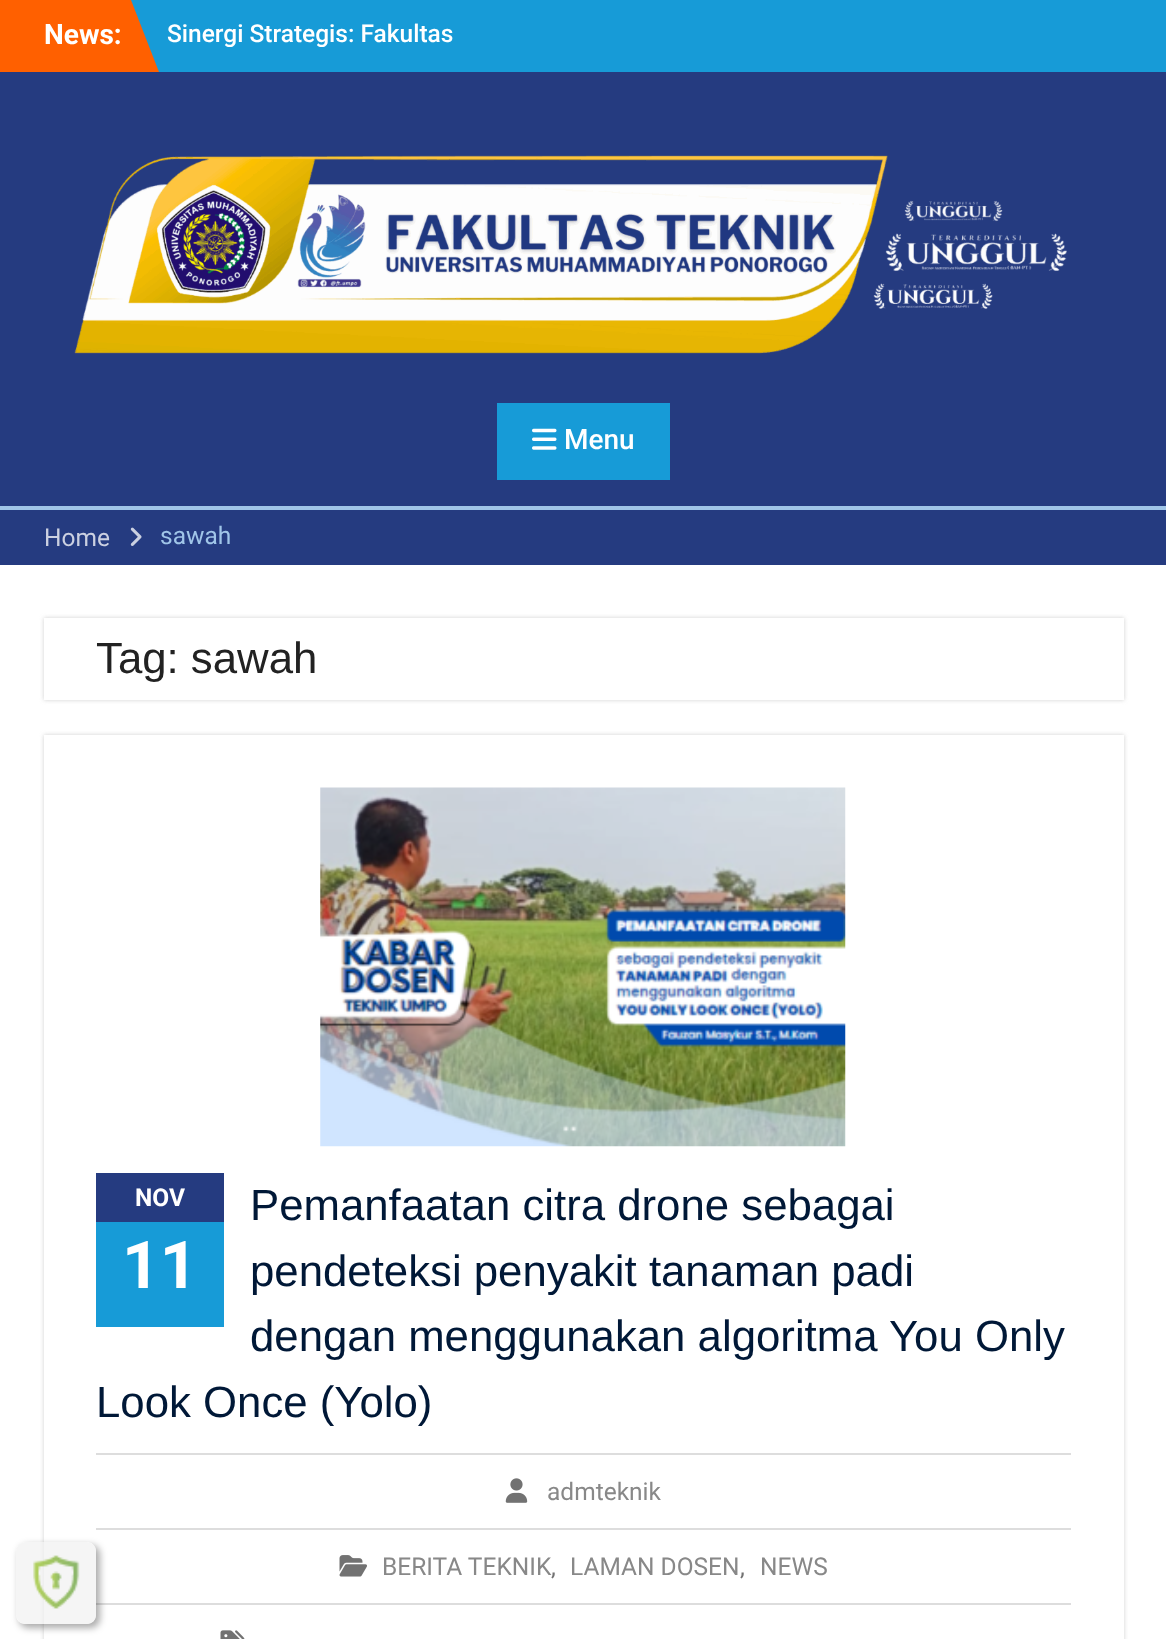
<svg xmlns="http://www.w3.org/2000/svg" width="1166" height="1639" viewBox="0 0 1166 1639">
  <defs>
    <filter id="blur1" x="-50%" y="-200%" width="200%" height="500%"><feGaussianBlur stdDeviation="2"/></filter>
    <clipPath id="clip1"><path d="M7 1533H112V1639H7ZM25 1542H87C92 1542 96 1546 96 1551V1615C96 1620 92 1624 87 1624H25C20 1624 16 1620 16 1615V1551C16 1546 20 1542 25 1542Z" clip-rule="evenodd"/></clipPath>
    <filter id="blur2" x="-50%" y="-200%" width="200%" height="500%"><feGaussianBlur stdDeviation="3.5"/></filter>
  </defs>
  <rect width="100%" height="100%" fill="#ffffff"/>
  <rect x="131" y="0" width="1035" height="72" fill="#179bd7"/>
  <rect x="0" y="0" width="131" height="72" fill="#ff6000"/>
  <text x="44" y="44" font-family="Roboto" font-size="28" font-weight="bold" fill="#ffffff">News:</text>
  <path d="M131 72V0L159 72Z" fill="#ff6000"/>
  <text x="167" y="42" font-family="Roboto" font-size="24.5" font-weight="500" fill="#ffffff">Sinergi Strategis: Fakultas</text>
  <rect x="0" y="72" width="1166" height="434" fill="#253b80"/>
  <image x="74" y="155" width="993" height="199" href="img1.png"/>
  <rect x="497" y="403" width="173" height="77" fill="#179bd7"/>
  <image x="532" y="428" width="25" height="22" href="img2.png"/>
  <text x="564" y="449" font-family="Roboto" font-size="28" font-weight="500" fill="#ffffff">Menu</text>
  <rect x="0" y="510" width="1166" height="55" fill="#253b80"/>
  <rect x="0" y="506" width="1166" height="4" fill="#a0c5e8"/>
  <text x="44" y="546" font-family="Roboto" font-size="24.5" fill="#cbd0e1">Home</text>
  <image x="130" y="527" width="12" height="19" href="img3.png"/>
  <text x="160" y="544" font-family="Roboto" font-size="24.5" fill="#a0c5e8">sawah</text>
  <rect x="44" y="618" width="1080" height="82" fill="#cfcfcf" filter="url(#blur1)"/>
  <rect x="44" y="618" width="1080" height="82" fill="#ffffff"/>
  <text x="96" y="673" font-family="Liberation Sans" font-size="43.75" fill="#222222">Tag: sawah</text>
  <rect x="44" y="735" width="1080" height="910" fill="#cfcfcf" filter="url(#blur1)"/>
  <rect x="44" y="735" width="1080" height="904" fill="#ffffff"/>
  <image x="320" y="787" width="526" height="360" href="img4.png"/>
  <text x="250" y="1220" font-family="Liberation Sans" font-size="43.75" fill="#001837">Pemanfaatan citra drone sebagai</text>
  <text x="250" y="1286" font-family="Liberation Sans" font-size="43.75" fill="#001837">pendeteksi penyakit tanaman padi</text>
  <text x="250" y="1351" font-family="Liberation Sans" font-size="43.75" fill="#001837">dengan menggunakan algoritma You Only</text>
  <text x="96" y="1417" font-family="Liberation Sans" font-size="43.75" fill="#001837">Look Once (Yolo)</text>
  <rect x="96" y="1173" width="128" height="49" fill="#253b80"/>
  <text x="135" y="1206" font-family="Roboto" font-size="24.5" font-weight="bold" fill="#ffffff">NOV</text>
  <rect x="96" y="1222" width="128" height="105" fill="#179bd7"/>
  <text x="122" y="1288" font-family="Roboto" font-size="66" font-weight="bold" fill="#ffffff">11</text>
  <rect x="96" y="1453" width="975" height="2" fill="#dddddd"/>
  <image x="505" y="1478" width="23" height="25" href="img5.png"/>
  <text x="547" y="1500" font-family="Roboto" font-size="24.5" fill="#888888">admteknik</text>
  <rect x="96" y="1528" width="975" height="2" fill="#dddddd"/>
  <image x="339" y="1555" width="28" height="22" href="img6.png"/>
  <text x="382" y="1575" font-family="Roboto" font-size="24.5" fill="#888888">BERITA TEKNIK</text>
  <text x="551" y="1575" font-family="Roboto" font-size="24.5" fill="#727272">,</text>
  <text x="570" y="1575" font-family="Roboto" font-size="24.5" fill="#888888">LAMAN DOSEN</text>
  <text x="740" y="1575" font-family="Roboto" font-size="24.5" fill="#727272">,</text>
  <text x="760" y="1575" font-family="Roboto" font-size="24.5" fill="#888888">NEWS</text>
  <rect x="96" y="1603" width="975" height="2" fill="#dddddd"/>
  <image x="220" y="1630" width="25" height="9" href="img7.png"/>
  <g clip-path="url(#clip1)">
    <rect x="19" y="1545" width="81" height="83" rx="9" fill="#000000" fill-opacity="0.33" filter="url(#blur2)"/>
  </g>
  <rect x="16" y="1542" width="80" height="82" rx="9" fill="#f1f1f1" fill-opacity="0.69"/>
  <image x="33" y="1555" width="47" height="54" href="img8.png"/>
</svg>
